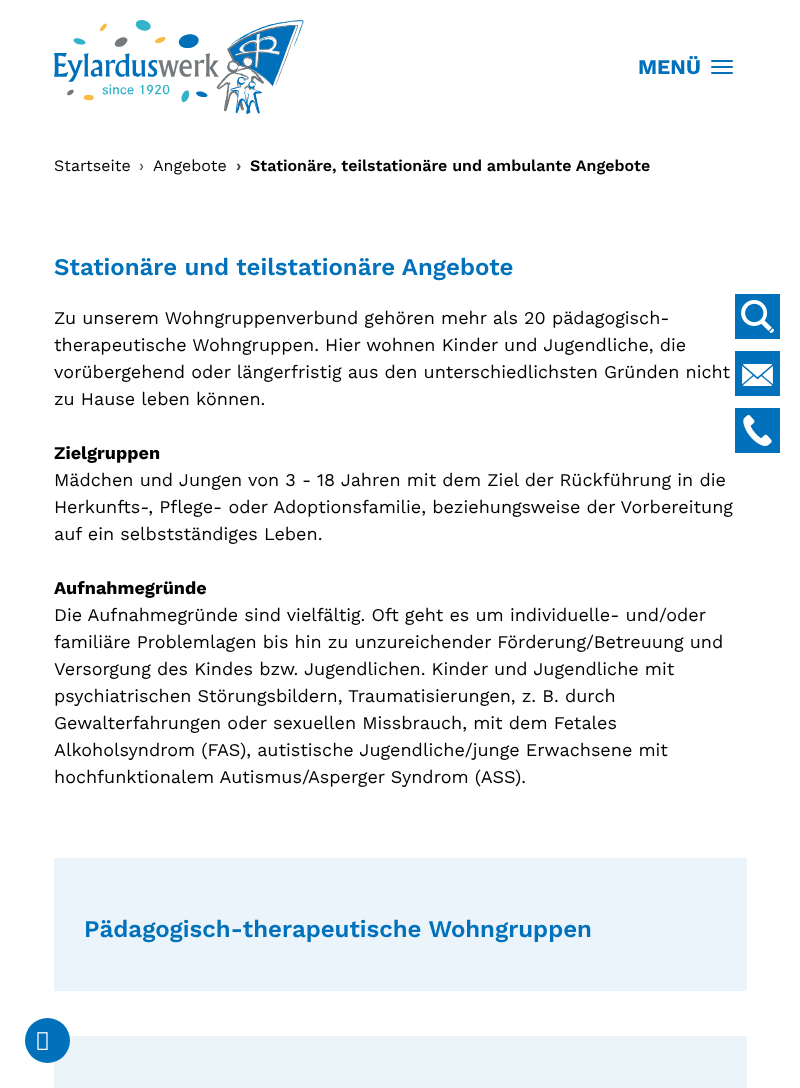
<svg xmlns="http://www.w3.org/2000/svg" width="800" height="1088" viewBox="0 0 800 1088">
  <rect width="100%" height="100%" fill="#ffffff"/>
  <image x="54" y="20" width="250" height="94" href="img1.png"/>
  <text x="638" y="74" font-family="Work Sans" font-size="21" font-weight="bold" fill="#0071ba">MENÜ</text>
  <rect x="711" y="60" width="22" height="2" rx="1" fill="#0071ba"/>
  <rect x="711" y="66" width="22" height="2" rx="1" fill="#0071ba"/>
  <rect x="711" y="72" width="22" height="2" rx="1" fill="#0071ba"/>
  <text x="54" y="171" font-family="Work Sans" font-size="16" fill="#000000">Startseite</text>
  <text x="139" y="171" font-family="Work Sans" font-size="16" fill="#404040">›</text>
  <text x="153" y="171" font-family="Work Sans" font-size="16" fill="#000000">Angebote</text>
  <text x="236" y="171" font-family="Work Sans" font-size="16" font-weight="600" fill="#404040">›</text>
  <text x="250" y="171" font-family="Work Sans" font-size="16" font-weight="600" fill="#000000">Stationäre, teilstationäre und ambulante Angebote</text>
  <text x="54" y="275" font-family="Work Sans" font-size="24" font-weight="600" fill="#0071ba">Stationäre und teilstationäre Angebote</text>
  <text x="54" y="324" font-family="Work Sans" font-size="18" fill="#000000">Zu unserem Wohngruppenverbund gehören mehr als 20 pädagogisch-</text>
  <text x="54" y="351" font-family="Work Sans" font-size="18" fill="#000000">therapeutische Wohngruppen. Hier wohnen Kinder und Jugendliche, die</text>
  <text x="54" y="378" font-family="Work Sans" font-size="18" fill="#000000">vorübergehend oder längerfristig aus den unterschiedlichsten Gründen nicht</text>
  <text x="54" y="405" font-family="Work Sans" font-size="18" fill="#000000">zu Hause leben können.</text>
  <text x="54" y="459" font-family="Work Sans" font-size="18" font-weight="bold" fill="#000000">Zielgruppen</text>
  <text x="54" y="486" font-family="Work Sans" font-size="18" fill="#000000">Mädchen und Jungen von 3 - 18 Jahren mit dem Ziel der Rückführung in die</text>
  <text x="54" y="513" font-family="Work Sans" font-size="18" fill="#000000">Herkunfts-, Pflege- oder Adoptionsfamilie, beziehungsweise der Vorbereitung</text>
  <text x="54" y="540" font-family="Work Sans" font-size="18" fill="#000000">auf ein selbstständiges Leben.</text>
  <text x="54" y="594" font-family="Work Sans" font-size="18" font-weight="bold" fill="#000000">Aufnahmegründe</text>
  <text x="54" y="621" font-family="Work Sans" font-size="18" fill="#000000">Die Aufnahmegründe sind vielfältig. Oft geht es um individuelle- und/oder</text>
  <text x="54" y="648" font-family="Work Sans" font-size="18" fill="#000000">familiäre Problemlagen bis hin zu unzureichender Förderung/Betreuung und</text>
  <text x="54" y="675" font-family="Work Sans" font-size="18" fill="#000000">Versorgung des Kindes bzw. Jugendlichen. Kinder und Jugendliche mit</text>
  <text x="54" y="702" font-family="Work Sans" font-size="18" fill="#000000">psychiatrischen Störungsbildern, Traumatisierungen, z. B. durch</text>
  <text x="54" y="729" font-family="Work Sans" font-size="18" fill="#000000">Gewalterfahrungen oder sexuellen Missbrauch, mit dem Fetales</text>
  <text x="54" y="756" font-family="Work Sans" font-size="18" fill="#000000">Alkoholsyndrom (FAS), autistische Jugendliche/junge Erwachsene mit</text>
  <text x="54" y="783" font-family="Work Sans" font-size="18" fill="#000000">hochfunktionalem Autismus/Asperger Syndrom (ASS).</text>
  <rect x="54" y="858" width="693" height="133" fill="#ebf4fa"/>
  <text x="84" y="937" font-family="Work Sans" font-size="24" font-weight="600" fill="#0071ba">Pädagogisch-therapeutische Wohngruppen</text>
  <rect x="54" y="1036" width="693" height="52" fill="#ebf4f9"/>
  <rect x="735" y="294" width="45" height="45" fill="#0071ba"/>
  <image x="741" y="300" width="33" height="33" href="img2.png"/>
  <rect x="735" y="351" width="45" height="45" fill="#0071ba"/>
  <image x="742" y="364" width="31" height="22" href="img3.png"/>
  <rect x="735" y="408" width="45" height="45" fill="#0071ba"/>
  <image x="743" y="415" width="29" height="31" href="img4.png"/>
  <circle cx="47.5" cy="1040.5" r="22.5" fill="#0071ba"/>
  <image x="37" y="1032" width="11" height="18" href="img5.png"/>
</svg>
